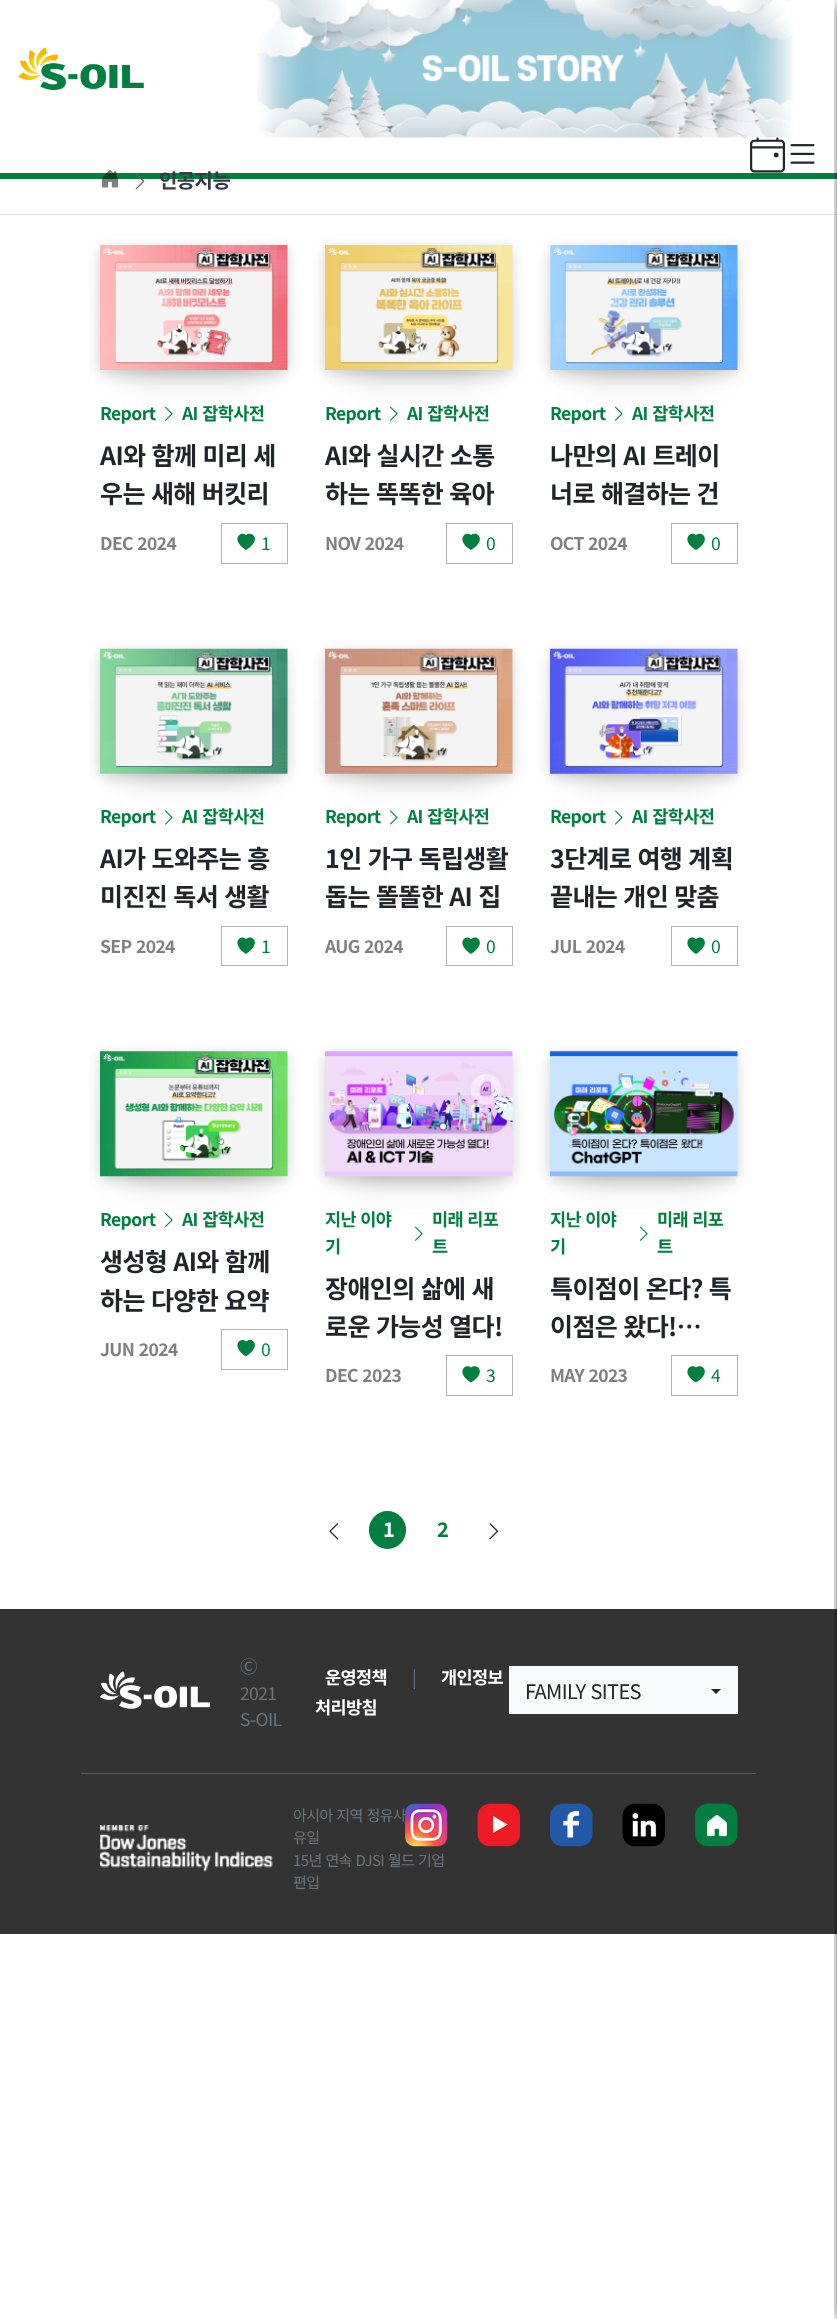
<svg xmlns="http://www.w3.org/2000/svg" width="837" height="2319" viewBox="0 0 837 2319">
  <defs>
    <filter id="blur1" x="-50%" y="-200%" width="200%" height="500%"><feGaussianBlur stdDeviation="5.5"/></filter>
    <filter id="blur2" x="-50%" y="-200%" width="200%" height="500%"><feGaussianBlur stdDeviation="7.5"/></filter>
    <filter id="blur3" x="-50%" y="-200%" width="200%" height="500%"><feGaussianBlur stdDeviation="17"/></filter>
  </defs>
  <rect width="100%" height="100%" fill="#ffffff"/>
  <rect x="0" y="173" width="837" height="6" fill="#007f41"/>
  <image x="18" y="47" width="126" height="43" href="img1.png"/>
  <image x="257" y="0" width="537" height="138" href="img2.png"/>
  <image x="750" y="137" width="35" height="36" href="img3.png"/>
  <image x="790" y="144" width="25" height="20" href="img4.png"/>
  <rect x="0" y="214" width="837" height="1" fill="#dee2e6"/>
  <rect x="0" y="1609" width="837" height="325" fill="#333333"/>
  <rect x="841" y="5" width="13" height="2313" fill="#000000" fill-opacity="0.75" filter="url(#blur1)"/>
  <image x="101" y="170" width="18" height="18" href="img5.png"/>
  <image x="135" y="173" width="10" height="17" href="img6.png"/>
  <text x="159" y="188" font-family="Noto Sans KR" font-size="20" font-weight="bold" letter-spacing="-0.6" fill="#343a40">인공지능</text>
  <rect x="101" y="250" width="185" height="123" fill="#070a19" fill-opacity="0.2" filter="url(#blur2)"/>
  <rect x="125" y="298" width="138" height="75" fill="#070a19" fill-opacity="0.2" filter="url(#blur3)"/>
  <image x="100" y="245" width="188" height="125" href="img7.png"/>
  <text x="100" y="420" font-family="Noto Sans KR" font-size="17.5" font-weight="bold" letter-spacing="-0.6" fill="#007f41">Report</text>
  <image x="164" y="406" width="9" height="15" href="img8.png"/>
  <text x="182" y="420" word-spacing="1" font-family="Noto Sans KR" font-size="17.5" font-weight="bold" letter-spacing="-0.6" fill="#007f41">AI 잡학사전</text>
  <text x="100" y="465" word-spacing="1" font-family="Noto Sans KR" font-size="25" font-weight="bold" letter-spacing="-0.6" fill="#212529">AI와 함께 미리 세</text>
  <text x="100" y="503" word-spacing="1" font-family="Noto Sans KR" font-size="25" font-weight="bold" letter-spacing="-0.6" fill="#212529">우는 새해 버킷리</text>
  <text x="100" y="550" word-spacing="1" font-family="Noto Sans KR" font-size="17.5" font-weight="bold" letter-spacing="-0.6" fill="#808080">DEC 2024</text>
  <rect x="221.5" y="523.5" width="66" height="40" fill="none" stroke="#b3b3b3"/>
  <path d="M246 535C251.5 530 263 539.5 246 550C229.5 539.5 241 530 246 535Z" fill="#007f41"/>
  <text x="261" y="550" font-family="Noto Sans KR" font-size="17.5" fill="#007f41">1</text>
  <rect x="326" y="250" width="185" height="123" fill="#070a19" fill-opacity="0.2" filter="url(#blur2)"/>
  <rect x="350" y="298" width="138" height="75" fill="#070a19" fill-opacity="0.2" filter="url(#blur3)"/>
  <image x="325" y="245" width="188" height="125" href="img9.png"/>
  <text x="325" y="420" font-family="Noto Sans KR" font-size="17.5" font-weight="bold" letter-spacing="-0.6" fill="#007f41">Report</text>
  <image x="389" y="406" width="9" height="15" href="img8.png"/>
  <text x="407" y="420" word-spacing="1" font-family="Noto Sans KR" font-size="17.5" font-weight="bold" letter-spacing="-0.6" fill="#007f41">AI 잡학사전</text>
  <text x="325" y="465" word-spacing="1" font-family="Noto Sans KR" font-size="25" font-weight="bold" letter-spacing="-0.6" fill="#212529">AI와 실시간 소통</text>
  <text x="325" y="503" word-spacing="1" font-family="Noto Sans KR" font-size="25" font-weight="bold" letter-spacing="-0.6" fill="#212529">하는 똑똑한 육아</text>
  <text x="325" y="550" word-spacing="1" font-family="Noto Sans KR" font-size="17.5" font-weight="bold" letter-spacing="-0.6" fill="#808080">NOV 2024</text>
  <rect x="446.5" y="523.5" width="66" height="40" fill="none" stroke="#b3b3b3"/>
  <path d="M471 535C476.5 530 488 539.5 471 550C454.5 539.5 466 530 471 535Z" fill="#007f41"/>
  <text x="486" y="550" font-family="Noto Sans KR" font-size="17.5" fill="#007f41">0</text>
  <rect x="551" y="250" width="185" height="123" fill="#070a19" fill-opacity="0.2" filter="url(#blur2)"/>
  <rect x="575" y="298" width="138" height="75" fill="#070a19" fill-opacity="0.2" filter="url(#blur3)"/>
  <image x="550" y="245" width="188" height="125" href="img10.png"/>
  <text x="550" y="420" font-family="Noto Sans KR" font-size="17.5" font-weight="bold" letter-spacing="-0.6" fill="#007f41">Report</text>
  <image x="614" y="406" width="9" height="15" href="img8.png"/>
  <text x="632" y="420" word-spacing="1" font-family="Noto Sans KR" font-size="17.5" font-weight="bold" letter-spacing="-0.6" fill="#007f41">AI 잡학사전</text>
  <text x="550" y="465" word-spacing="1" font-family="Noto Sans KR" font-size="25" font-weight="bold" letter-spacing="-0.6" fill="#212529">나만의 AI 트레이</text>
  <text x="550" y="503" word-spacing="1" font-family="Noto Sans KR" font-size="25" font-weight="bold" letter-spacing="-0.6" fill="#212529">너로 해결하는 건</text>
  <text x="550" y="550" word-spacing="1" font-family="Noto Sans KR" font-size="17.5" font-weight="bold" letter-spacing="-0.6" fill="#808080">OCT 2024</text>
  <rect x="671.5" y="523.5" width="66" height="40" fill="none" stroke="#b3b3b3"/>
  <path d="M696 535C701.5 530 713 539.5 696 550C679.5 539.5 691 530 696 535Z" fill="#007f41"/>
  <text x="711" y="550" font-family="Noto Sans KR" font-size="17.5" fill="#007f41">0</text>
  <rect x="101" y="654" width="185" height="122" fill="#070a19" fill-opacity="0.2" filter="url(#blur2)"/>
  <rect x="125" y="701" width="138" height="75" fill="#070a19" fill-opacity="0.2" filter="url(#blur3)"/>
  <image x="100" y="648" width="188" height="126" href="img11.png"/>
  <text x="100" y="823" font-family="Noto Sans KR" font-size="17.5" font-weight="bold" letter-spacing="-0.6" fill="#007f41">Report</text>
  <image x="165" y="810" width="8" height="15" href="img12.png"/>
  <text x="182" y="823" word-spacing="1" font-family="Noto Sans KR" font-size="17.5" font-weight="bold" letter-spacing="-0.6" fill="#007f41">AI 잡학사전</text>
  <text x="100" y="868" word-spacing="1" font-family="Noto Sans KR" font-size="25" font-weight="bold" letter-spacing="-0.6" fill="#212529">AI가 도와주는 흥</text>
  <text x="100" y="906" word-spacing="1" font-family="Noto Sans KR" font-size="25" font-weight="bold" letter-spacing="-0.6" fill="#212529">미진진 독서 생활</text>
  <text x="100" y="953" word-spacing="1" font-family="Noto Sans KR" font-size="17.5" font-weight="bold" letter-spacing="-0.6" fill="#808080">SEP 2024</text>
  <rect x="221.5" y="926.5" width="66" height="39" fill="none" stroke="#b3b3b3"/>
  <path d="M246 939C251.5 933.5 263 943 246 954C229.5 943 241 933.5 246 939Z" fill="#007f41"/>
  <text x="261" y="953" font-family="Noto Sans KR" font-size="17.5" fill="#007f41">1</text>
  <rect x="326" y="654" width="185" height="122" fill="#070a19" fill-opacity="0.2" filter="url(#blur2)"/>
  <rect x="350" y="701" width="138" height="75" fill="#070a19" fill-opacity="0.2" filter="url(#blur3)"/>
  <image x="325" y="648" width="188" height="126" href="img13.png"/>
  <text x="325" y="823" font-family="Noto Sans KR" font-size="17.5" font-weight="bold" letter-spacing="-0.6" fill="#007f41">Report</text>
  <image x="390" y="810" width="8" height="15" href="img12.png"/>
  <text x="407" y="823" word-spacing="1" font-family="Noto Sans KR" font-size="17.5" font-weight="bold" letter-spacing="-0.6" fill="#007f41">AI 잡학사전</text>
  <text x="325" y="868" word-spacing="1" font-family="Noto Sans KR" font-size="25" font-weight="bold" letter-spacing="-0.6" fill="#212529">1인 가구 독립생활</text>
  <text x="325" y="906" word-spacing="1" font-family="Noto Sans KR" font-size="25" font-weight="bold" letter-spacing="-0.6" fill="#212529">돕는 똘똘한 AI 집</text>
  <text x="325" y="953" word-spacing="1" font-family="Noto Sans KR" font-size="17.5" font-weight="bold" letter-spacing="-0.6" fill="#808080">AUG 2024</text>
  <rect x="446.5" y="926.5" width="66" height="39" fill="none" stroke="#b3b3b3"/>
  <path d="M471 939C476.5 933.5 488 943 471 954C454.5 943 466 933.5 471 939Z" fill="#007f41"/>
  <text x="486" y="953" font-family="Noto Sans KR" font-size="17.5" fill="#007f41">0</text>
  <rect x="551" y="654" width="185" height="122" fill="#070a19" fill-opacity="0.2" filter="url(#blur2)"/>
  <rect x="575" y="701" width="138" height="75" fill="#070a19" fill-opacity="0.2" filter="url(#blur3)"/>
  <image x="550" y="648" width="188" height="126" href="img14.png"/>
  <text x="550" y="823" font-family="Noto Sans KR" font-size="17.5" font-weight="bold" letter-spacing="-0.6" fill="#007f41">Report</text>
  <image x="615" y="810" width="8" height="15" href="img12.png"/>
  <text x="632" y="823" word-spacing="1" font-family="Noto Sans KR" font-size="17.5" font-weight="bold" letter-spacing="-0.6" fill="#007f41">AI 잡학사전</text>
  <text x="550" y="868" word-spacing="1" font-family="Noto Sans KR" font-size="25" font-weight="bold" letter-spacing="-0.6" fill="#212529">3단계로 여행 계획</text>
  <text x="550" y="906" word-spacing="1" font-family="Noto Sans KR" font-size="25" font-weight="bold" letter-spacing="-0.6" fill="#212529">끝내는 개인 맞춤</text>
  <text x="550" y="953" word-spacing="1" font-family="Noto Sans KR" font-size="17.5" font-weight="bold" letter-spacing="-0.6" fill="#808080">JUL 2024</text>
  <rect x="671.5" y="926.5" width="66" height="39" fill="none" stroke="#b3b3b3"/>
  <path d="M696 939C701.5 933.5 713 943 696 954C679.5 943 691 933.5 696 939Z" fill="#007f41"/>
  <text x="711" y="953" font-family="Noto Sans KR" font-size="17.5" fill="#007f41">0</text>
  <rect x="101" y="1056" width="185" height="123" fill="#070a19" fill-opacity="0.2" filter="url(#blur2)"/>
  <rect x="125" y="1104" width="138" height="75" fill="#070a19" fill-opacity="0.2" filter="url(#blur3)"/>
  <image x="100" y="1051" width="188" height="126" href="img15.png"/>
  <text x="100" y="1226" font-family="Noto Sans KR" font-size="17.5" font-weight="bold" letter-spacing="-0.6" fill="#007f41">Report</text>
  <image x="164" y="1212" width="9" height="16" href="img16.png"/>
  <text x="182" y="1226" word-spacing="1" font-family="Noto Sans KR" font-size="17.5" font-weight="bold" letter-spacing="-0.6" fill="#007f41">AI 잡학사전</text>
  <text x="100" y="1271" word-spacing="1" font-family="Noto Sans KR" font-size="25" font-weight="bold" letter-spacing="-0.6" fill="#212529">생성형 AI와 함께</text>
  <text x="100" y="1310" word-spacing="1" font-family="Noto Sans KR" font-size="25" font-weight="bold" letter-spacing="-0.6" fill="#212529">하는 다양한 요약</text>
  <text x="100" y="1356" word-spacing="1" font-family="Noto Sans KR" font-size="17.5" font-weight="bold" letter-spacing="-0.6" fill="#808080">JUN 2024</text>
  <rect x="221.5" y="1329.5" width="66" height="40" fill="none" stroke="#b3b3b3"/>
  <path d="M246 1341.5C251.5 1336 263 1345.5 246 1356.5C229.5 1345.5 241 1336 246 1341.5Z" fill="#007f41"/>
  <text x="261" y="1356" font-family="Noto Sans KR" font-size="17.5" fill="#007f41">0</text>
  <rect x="326" y="1056" width="185" height="123" fill="#070a19" fill-opacity="0.2" filter="url(#blur2)"/>
  <rect x="350" y="1104" width="138" height="75" fill="#070a19" fill-opacity="0.2" filter="url(#blur3)"/>
  <image x="325" y="1051" width="188" height="126" href="img17.png"/>
  <text x="325" y="1226" word-spacing="1" font-family="Noto Sans KR" font-size="17.5" font-weight="bold" letter-spacing="-0.6" fill="#007f41">지난 이야</text>
  <text x="432" y="1226" word-spacing="1" font-family="Noto Sans KR" font-size="17.5" font-weight="bold" letter-spacing="-0.6" fill="#007f41">미래 리포</text>
  <image x="414" y="1226" width="9" height="15" href="img18.png"/>
  <text x="325" y="1253" font-family="Noto Sans KR" font-size="17.5" font-weight="bold" letter-spacing="-0.6" fill="#007f41">기</text>
  <text x="432" y="1253" font-family="Noto Sans KR" font-size="17.5" font-weight="bold" letter-spacing="-0.6" fill="#007f41">트</text>
  <text x="325" y="1298" word-spacing="1" font-family="Noto Sans KR" font-size="25" font-weight="bold" letter-spacing="-0.6" fill="#212529">장애인의 삶에 새</text>
  <text x="325" y="1336" word-spacing="1" font-family="Noto Sans KR" font-size="25" font-weight="bold" letter-spacing="-0.6" fill="#212529">로운 가능성 열다!</text>
  <text x="325" y="1382" word-spacing="1" font-family="Noto Sans KR" font-size="17.5" font-weight="bold" letter-spacing="-0.6" fill="#808080">DEC 2023</text>
  <rect x="446.5" y="1355.5" width="66" height="40" fill="none" stroke="#b3b3b3"/>
  <path d="M471 1367.5C476.5 1362.5 488 1372 471 1382.5C454.5 1372 466 1362.5 471 1367.5Z" fill="#007f41"/>
  <text x="486" y="1382" font-family="Noto Sans KR" font-size="17.5" fill="#007f41">3</text>
  <rect x="551" y="1056" width="185" height="123" fill="#070a19" fill-opacity="0.2" filter="url(#blur2)"/>
  <rect x="575" y="1104" width="138" height="75" fill="#070a19" fill-opacity="0.2" filter="url(#blur3)"/>
  <image x="550" y="1051" width="188" height="126" href="img19.png"/>
  <text x="550" y="1226" word-spacing="1" font-family="Noto Sans KR" font-size="17.5" font-weight="bold" letter-spacing="-0.6" fill="#007f41">지난 이야</text>
  <text x="657" y="1226" word-spacing="1" font-family="Noto Sans KR" font-size="17.5" font-weight="bold" letter-spacing="-0.6" fill="#007f41">미래 리포</text>
  <image x="639" y="1226" width="9" height="15" href="img18.png"/>
  <text x="550" y="1253" font-family="Noto Sans KR" font-size="17.5" font-weight="bold" letter-spacing="-0.6" fill="#007f41">기</text>
  <text x="657" y="1253" font-family="Noto Sans KR" font-size="17.5" font-weight="bold" letter-spacing="-0.6" fill="#007f41">트</text>
  <text x="550" y="1298" word-spacing="1" font-family="Noto Sans KR" font-size="25" font-weight="bold" letter-spacing="-0.6" fill="#212529">특이점이 온다? 특</text>
  <text x="550" y="1336" word-spacing="1" font-family="Noto Sans KR" font-size="25" font-weight="bold" letter-spacing="-0.6" fill="#212529">이점은 왔다!…</text>
  <text x="550" y="1382" word-spacing="1" font-family="Noto Sans KR" font-size="17.5" font-weight="bold" letter-spacing="-0.6" fill="#808080">MAY 2023</text>
  <rect x="671.5" y="1355.5" width="66" height="40" fill="none" stroke="#b3b3b3"/>
  <path d="M696 1367.5C701.5 1362.5 713 1372 696 1382.5C679.5 1372 691 1362.5 696 1367.5Z" fill="#007f41"/>
  <text x="711" y="1382" font-family="Noto Sans KR" font-size="17.5" fill="#007f41">4</text>
  <image x="329" y="1523" width="10" height="17" href="img20.png"/>
  <rect x="369" y="1511" width="37" height="38" rx="18.5" fill="#007f41"/>
  <text x="383" y="1537" font-family="Noto Sans KR" font-size="20" font-weight="bold" letter-spacing="-0.6" fill="#ffffff">1</text>
  <text x="437" y="1537" font-family="Noto Sans KR" font-size="20" font-weight="bold" letter-spacing="-0.6" fill="#007f41">2</text>
  <image x="489" y="1523" width="10" height="17" href="img21.png"/>
  <rect x="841" y="5" width="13" height="2313" fill="#000000" fill-opacity="0.75" filter="url(#blur1)"/>
  <rect x="81" y="1773" width="675" height="1" fill="#5c5c5c"/>
  <image x="100" y="1671" width="110" height="38" href="img22.png"/>
  <text x="240" y="1673" font-family="Noto Sans KR" font-size="17.5" letter-spacing="-0.6" fill="#6c757d">Ⓒ</text>
  <text x="240" y="1700" font-family="Noto Sans KR" font-size="17.5" letter-spacing="-0.6" fill="#6c757d">2021</text>
  <text x="240" y="1726" font-family="Noto Sans KR" font-size="17.5" letter-spacing="-0.6" fill="#6c757d">S-OIL</text>
  <text x="325" y="1684" font-family="Noto Sans KR" font-size="17.5" font-weight="bold" letter-spacing="-0.6" fill="#ffffff">운영정책</text>
  <text x="412" y="1684" font-family="Noto Sans KR" font-size="17.5" letter-spacing="-0.6" fill="#6c757d">|</text>
  <text x="441" y="1684" font-family="Noto Sans KR" font-size="17.5" font-weight="bold" letter-spacing="-0.6" fill="#ffffff">개인정보</text>
  <text x="315" y="1714" font-family="Noto Sans KR" font-size="17.5" font-weight="bold" letter-spacing="-0.6" fill="#ffffff">처리방침</text>
  <rect x="509" y="1666" width="229" height="48" fill="#f8f9fa"/>
  <text x="525" y="1699" word-spacing="1" font-family="Noto Sans KR" font-size="20" letter-spacing="-0.6" fill="#212529">FAMILY SITES</text>
  <path d="M711 1689H721L716 1694Z" fill="#212529"/>
  <image x="100" y="1825" width="173" height="47" href="img23.png"/>
  <text x="293" y="1821" word-spacing="1" font-family="Chiron Hei HK" font-size="15" letter-spacing="-0.6" fill="#6c757d">아시아 지역 정유사</text>
  <text x="293" y="1843" font-family="Chiron Hei HK" font-size="15" letter-spacing="-0.6" fill="#6c757d">유일</text>
  <text x="293" y="1866" word-spacing="1" font-family="Noto Sans KR" font-size="15" letter-spacing="-0.6" fill="#6c757d">15년 연속 DJSI 월드 기업</text>
  <text x="293" y="1888" font-family="Noto Sans KR" font-size="15" letter-spacing="-0.6" fill="#6c757d">편입</text>
  <image x="405" y="1803" width="43" height="44" href="img24.png"/>
  <image x="477" y="1803" width="43" height="44" href="img25.png"/>
  <image x="550" y="1803" width="43" height="44" href="img26.png"/>
  <image x="622" y="1803" width="43" height="44" href="img27.png"/>
  <image x="695" y="1803" width="43" height="44" href="img28.png"/>
</svg>
